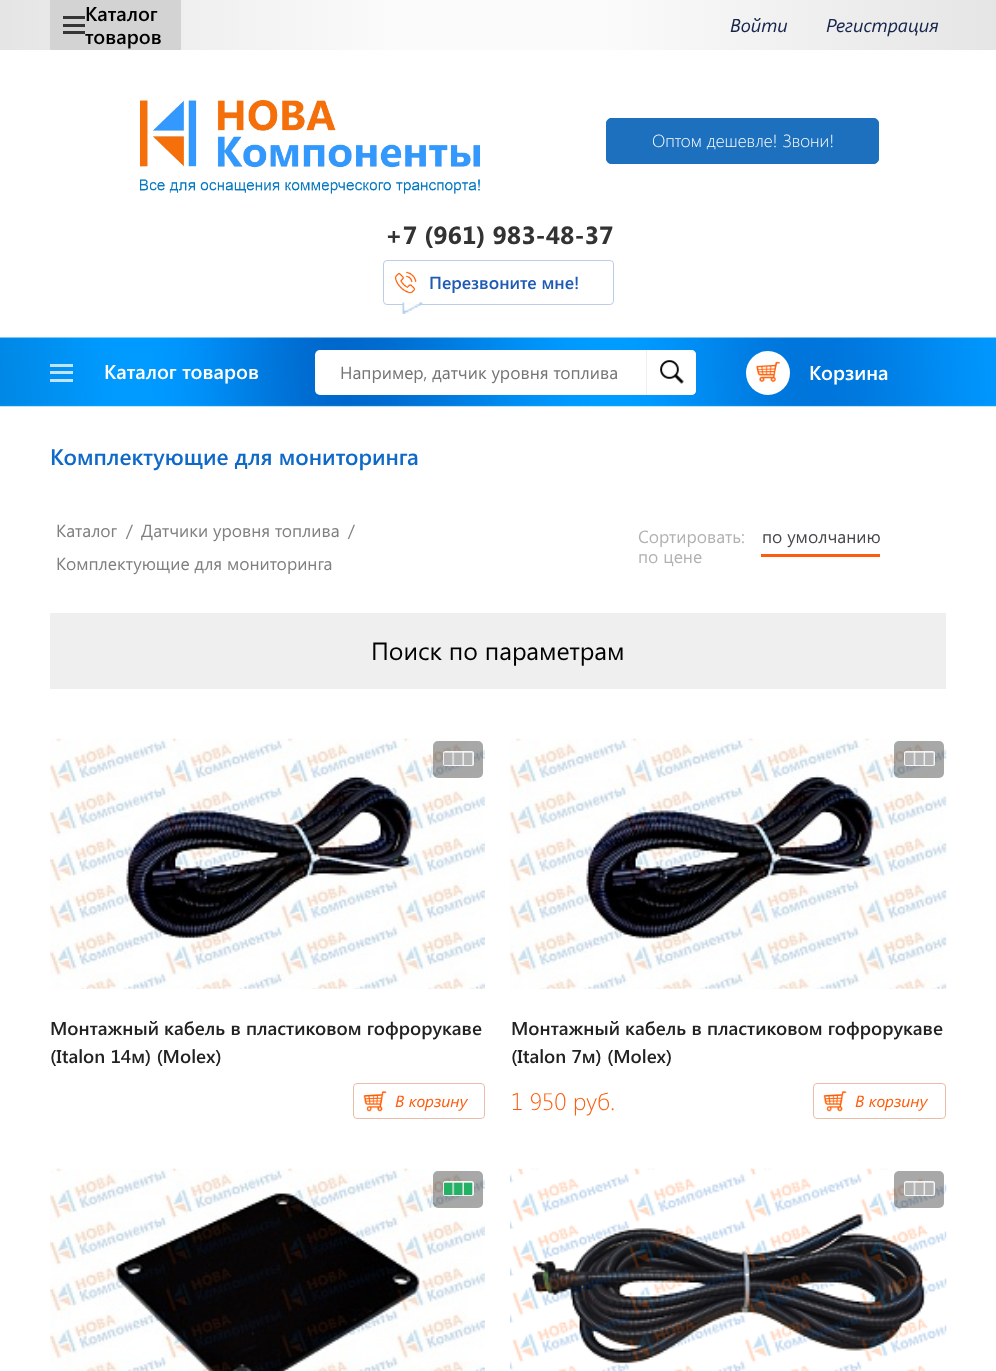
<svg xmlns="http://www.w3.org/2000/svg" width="996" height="1371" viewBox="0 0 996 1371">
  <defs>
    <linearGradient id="g1" gradientUnits="userSpaceOnUse" x1="0" y1="25" x2="399" y2="25"><stop offset="0" stop-color="#e5e5e5"/><stop offset="1" stop-color="#fbfbfb"/></linearGradient>
    <linearGradient id="g2" gradientUnits="userSpaceOnUse" x1="996" y1="25" x2="598" y2="25"><stop offset="0" stop-color="#e5e5e5"/><stop offset="1" stop-color="#fbfbfb"/></linearGradient>
  </defs>
  <rect width="100%" height="100%" fill="#ffffff"/>
  <rect x="399" y="0" width="199" height="50" fill="#fbfbfb"/>
  <rect x="0" y="0" width="399" height="50" fill="url(#g1)"/>
  <rect x="598" y="0" width="398" height="50" fill="url(#g2)"/>
  <rect x="50" y="0" width="131" height="50" fill="#d3d3d3"/>
  <text x="85" y="21" font-family="Segoe UI" font-size="20" font-weight="600" fill="#000000">Каталог</text>
  <rect x="63" y="16" width="22" height="3" fill="#353535"/>
  <rect x="63" y="24" width="22" height="3" fill="#353535"/>
  <rect x="63" y="31" width="22" height="3" fill="#353535"/>
  <text x="85" y="44" font-family="Segoe UI" font-size="20" font-weight="600" fill="#000000">товаров</text>
  <text x="730" y="32" font-family="Segoe UI" font-size="18.75" font-style="italic" fill="#17244b">Войти</text>
  <text x="826" y="32" font-family="Segoe UI" font-size="18.75" font-style="italic" fill="#17244b">Регистрация</text>
  <image x="140" y="100" width="340" height="94" href="img1.png"/>
  <rect x="606.5" y="118.5" width="272" height="45" rx="4.5" fill="#1d70be" stroke="#1d70be"/>
  <text x="652" y="147" font-family="Segoe UI" font-size="17.5" font-weight="300" fill="#ffffff">Оптом дешевле! Звони!</text>
  <text x="385" y="244" font-family="Segoe UI" font-size="25" font-weight="bold" fill="#333333">+7 (961) 983-48-37</text>
  <rect x="383.5" y="260.5" width="230" height="44" rx="3.5" fill="none" stroke="#bbcde8"/>
  <image x="395" y="271" width="22" height="23" href="img2.png"/>
  <text x="429" y="289" font-family="Segoe UI" font-size="17.5" font-weight="600" fill="#1f5bb5">Перезвоните мне!</text>
  <image x="402" y="302" width="21" height="12" href="img3.png"/>
  <image x="0" y="337" width="996" height="70" href="img4.png"/>
  <rect x="50" y="364" width="23" height="3" fill="#ffffff" fill-opacity="0.75"/>
  <rect x="50" y="371" width="23" height="3" fill="#ffffff" fill-opacity="0.75"/>
  <rect x="50" y="379" width="23" height="3" fill="#ffffff" fill-opacity="0.75"/>
  <text x="104" y="379" font-family="Segoe UI" font-size="20" font-weight="600" fill="#ffffff">Каталог товаров</text>
  <rect x="315" y="350" width="381" height="45" rx="5" fill="#ffffff"/>
  <text x="340" y="379" font-family="Segoe UI" font-size="17.5" fill="#757575">Например, датчик уровня топлива</text>
  <path d="M646 350H691C694 350 696 352 696 355V390C696 393 694 395 691 395H646Z" fill="#ffffff"/>
  <image x="660" y="360" width="24" height="24" href="img5.png"/>
  <rect x="646" y="350" width="1" height="45" fill="#efefef"/>
  <circle cx="768" cy="373" r="22" fill="#ffffff"/>
  <image x="756" y="361" width="24" height="21" href="img6.png"/>
  <text x="809" y="380" font-family="Segoe UI" font-size="20" font-weight="600" fill="#ffffff">Корзина</text>
  <text x="50" y="465" font-family="Segoe UI" font-size="22.5" font-weight="600" fill="#0e69c8">Комплектующие для мониторинга</text>
  <text x="56" y="537" font-family="Segoe UI" font-size="17.5" fill="#808080">Каталог</text>
  <text x="126" y="537" font-family="Segoe UI" font-size="17.5" fill="#808080">/</text>
  <text x="141" y="537" font-family="Segoe UI" font-size="17.5" fill="#808080">Датчики уровня топлива</text>
  <text x="348" y="537" font-family="Segoe UI" font-size="17.5" fill="#808080">/</text>
  <text x="56" y="570" font-family="Segoe UI" font-size="17.5" fill="#808080">Комплектующие для мониторинга</text>
  <text x="638" y="543" font-family="Segoe UI" font-size="17.5" fill="#b2b2b2">Сортировать:</text>
  <text x="762" y="543" font-family="Segoe UI" font-size="17.5" fill="#49474b">по умолчанию</text>
  <rect x="761" y="554" width="119" height="3" fill="#fd5c0d"/>
  <text x="638" y="563" font-family="Segoe UI" font-size="17.5" fill="#b2b2b2">по цене</text>
  <rect x="50" y="613" width="896" height="76" fill="#efefef"/>
  <text x="371" y="660" font-family="Segoe UI" font-size="25" fill="#000000">Поиск по параметрам</text>
  <image x="50" y="738" width="435" height="251" href="img7.png"/>
  <rect x="433" y="741" width="50" height="37" rx="5" fill="#000000" fill-opacity="0.34"/>
  <rect x="443" y="751" width="31" height="15" rx="2.5" fill="#ffffff" fill-opacity="0.85"/>
  <rect x="443.5" y="751.5" width="30" height="14" rx="2" fill="none" stroke="#ffffff" stroke-opacity="0.26"/>
  <image x="443" y="752" width="30" height="13" href="img8.png"/>
  <text x="50" y="1035" font-family="Segoe UI" font-size="18.75" font-weight="600" fill="#222222">Монтажный кабель в пластиковом гофрорукаве</text>
  <text x="50" y="1063" font-family="Segoe UI" font-size="18.75" font-weight="600" fill="#222222">(Italon 14м) (Molex)</text>
  <image x="363" y="1091" width="24" height="21" href="img9.png"/>
  <rect x="353.5" y="1083.5" width="131" height="35" rx="3.5" fill="none" stroke="#ebbda8"/>
  <text x="395" y="1107" font-family="Segoe UI" font-size="16.25" font-style="italic" fill="#fd5c0d">В корзину</text>
  <image x="510" y="738" width="437" height="251" href="img10.png"/>
  <rect x="894" y="741" width="50" height="37" rx="5" fill="#000000" fill-opacity="0.34"/>
  <rect x="904" y="751" width="31" height="15" rx="2.5" fill="#ffffff" fill-opacity="0.85"/>
  <rect x="904.5" y="751.5" width="30" height="14" rx="2" fill="none" stroke="#ffffff" stroke-opacity="0.26"/>
  <image x="905" y="752" width="29" height="13" href="img11.png"/>
  <text x="511" y="1035" font-family="Segoe UI" font-size="18.75" font-weight="600" fill="#222222">Монтажный кабель в пластиковом гофрорукаве</text>
  <text x="511" y="1063" font-family="Segoe UI" font-size="18.75" font-weight="600" fill="#222222">(Italon 7м) (Molex)</text>
  <text x="511" y="1110" font-family="Segoe UI" font-size="23.75" font-weight="300" fill="#fd5c0d">1 950 руб.</text>
  <image x="823" y="1091" width="24" height="21" href="img9.png"/>
  <rect x="813.5" y="1083.5" width="132" height="35" rx="3.5" fill="none" stroke="#ebbda8"/>
  <text x="855" y="1107" font-family="Segoe UI" font-size="16.25" font-style="italic" fill="#fd5c0d">В корзину</text>
  <image x="50" y="1168" width="435" height="203" href="img12.png"/>
  <rect x="433" y="1171" width="50" height="37" rx="5" fill="#000000" fill-opacity="0.34"/>
  <rect x="443" y="1181" width="31" height="15" rx="2.5" fill="#ffffff" fill-opacity="0.85"/>
  <rect x="443.5" y="1181.5" width="30" height="14" rx="2" fill="none" stroke="#ffffff" stroke-opacity="0.26"/>
  <image x="443" y="1182" width="30" height="13" href="img13.png"/>
  <image x="510" y="1168" width="437" height="203" href="img14.png"/>
  <rect x="894" y="1171" width="50" height="37" rx="5" fill="#000000" fill-opacity="0.34"/>
  <rect x="904" y="1181" width="31" height="15" rx="2.5" fill="#ffffff" fill-opacity="0.85"/>
  <rect x="904.5" y="1181.5" width="30" height="14" rx="2" fill="none" stroke="#ffffff" stroke-opacity="0.26"/>
  <image x="905" y="1182" width="29" height="13" href="img15.png"/>
</svg>
